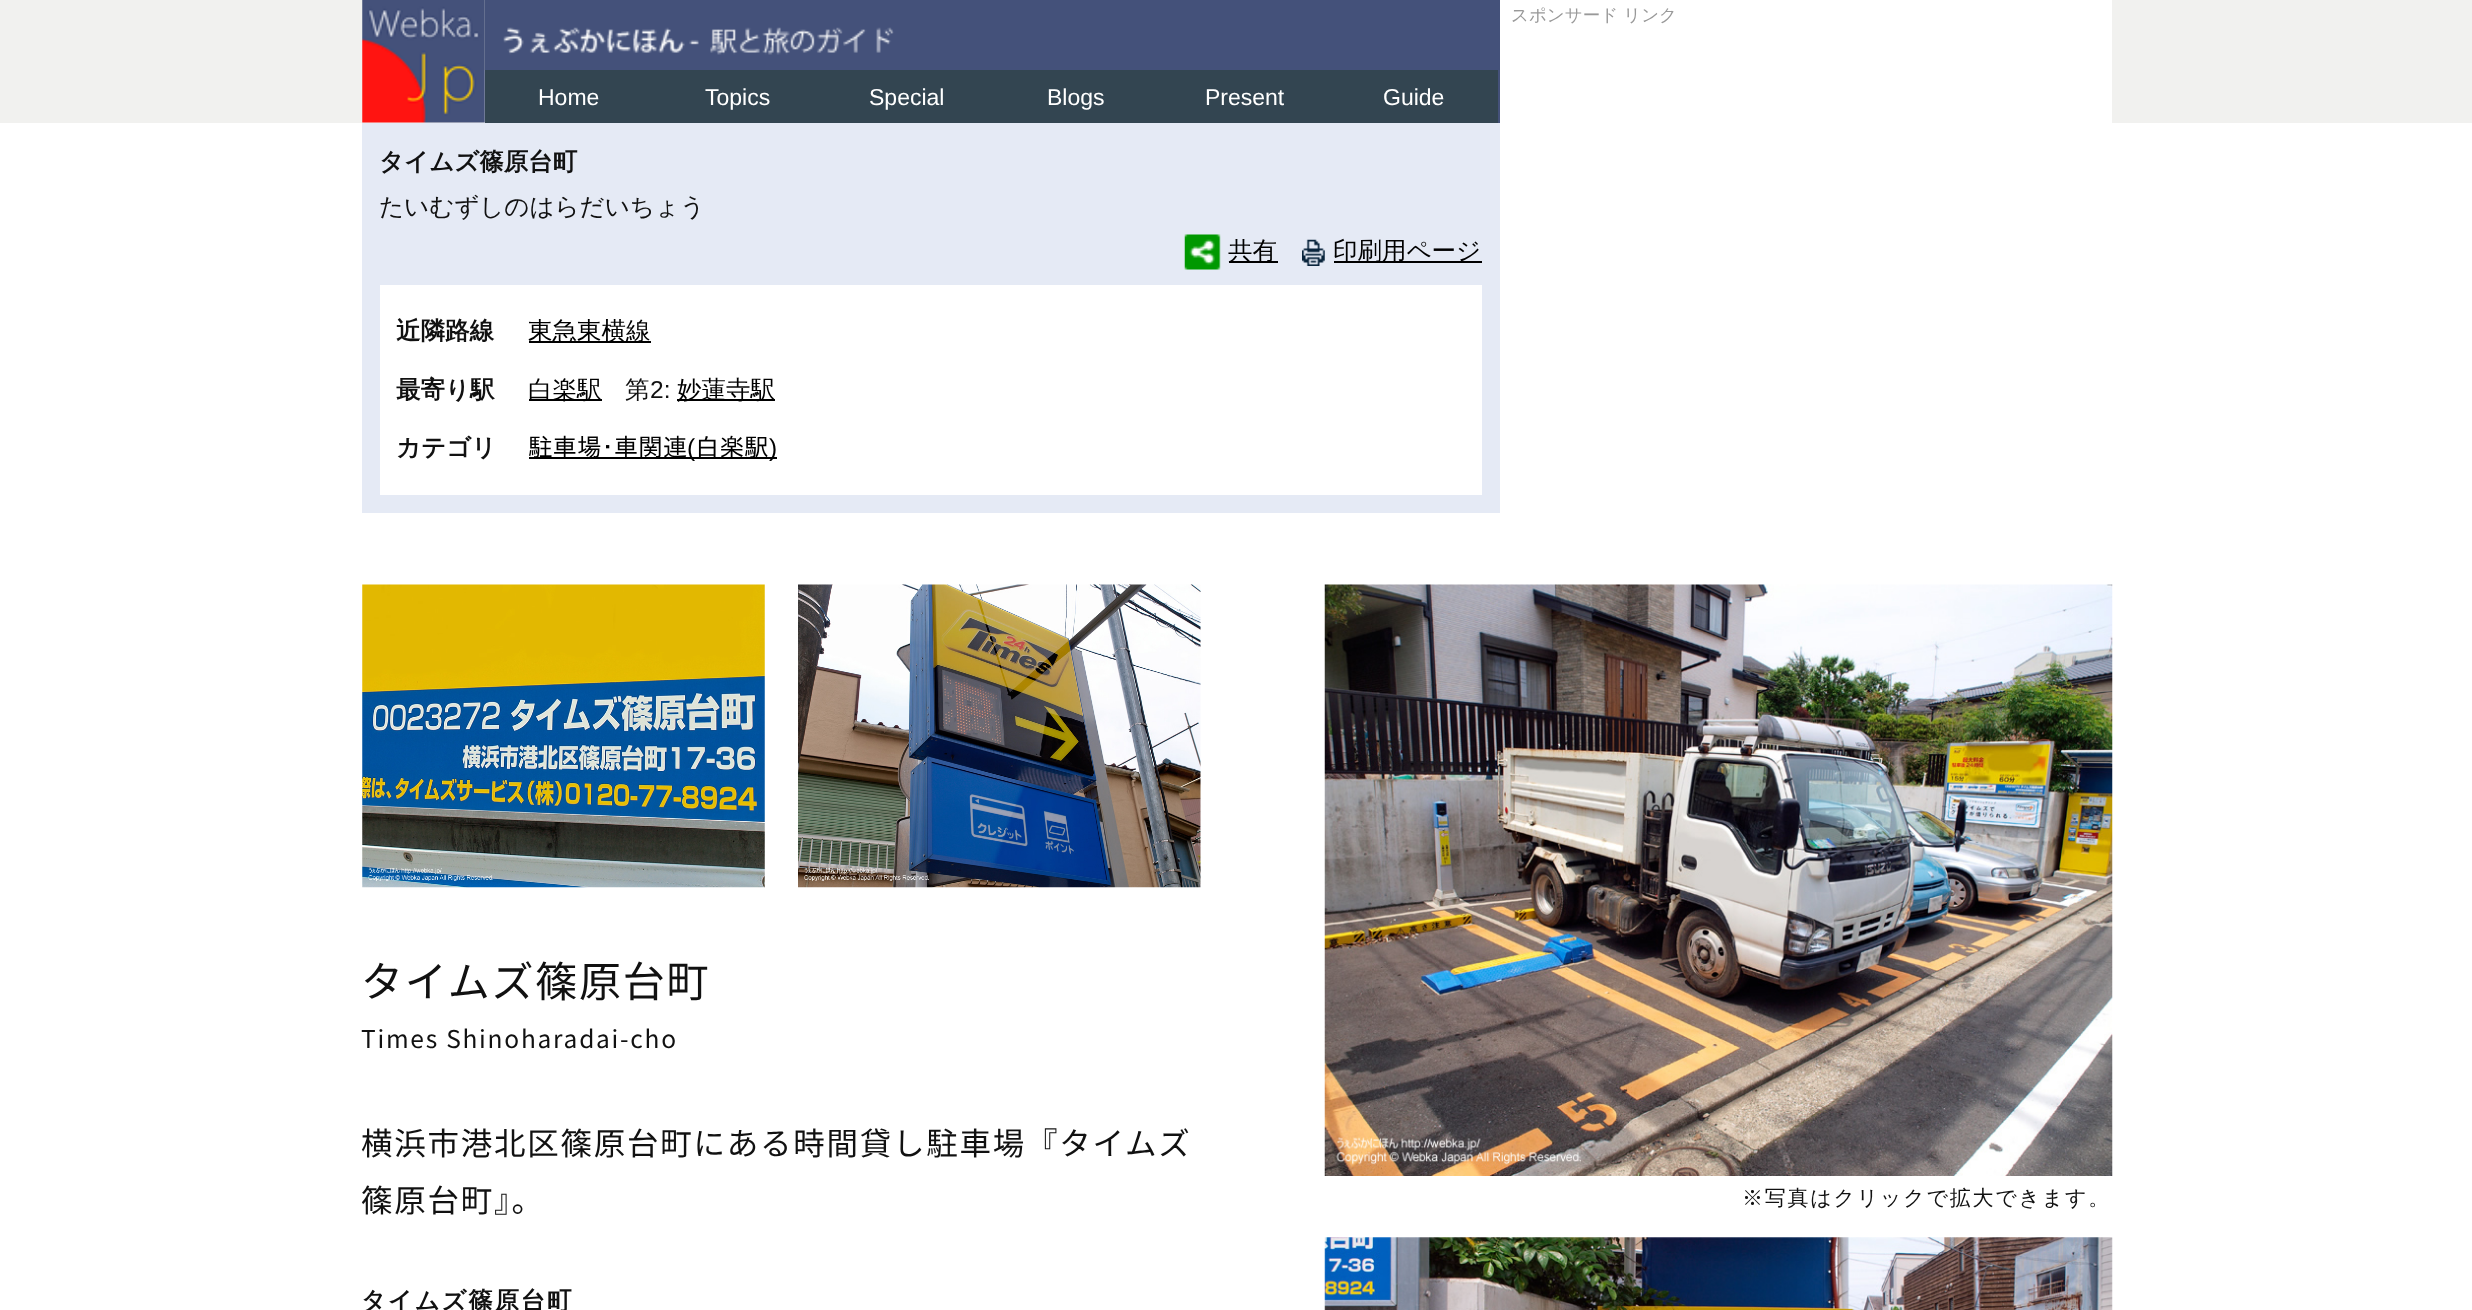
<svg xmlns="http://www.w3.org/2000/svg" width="2472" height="1310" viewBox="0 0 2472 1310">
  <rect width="100%" height="100%" fill="#ffffff"/>
  <rect x="0" y="0" width="2472" height="123" fill="#f1f1ef"/>
  <rect x="1500" y="0" width="612" height="123" fill="#ffffff"/>
  <text x="1511" y="21" font-family="WenQuanYi Zen Hei" font-size="17.5" font-weight="500" fill="#999999">スポンサード リンク</text>
  <image x="484" y="0" width="410" height="70" href="img2.png"/>
  <image x="362" y="0" width="123" height="123" href="img1.png"/>
  <rect x="894" y="0" width="606" height="70" fill="#44517a"/>
  <rect x="1498" y="70" width="2" height="53" fill="#44517a"/>
  <rect x="485" y="70" width="1013" height="53" fill="#334551"/>
  <text x="538" y="105" font-family="Liberation Sans" font-size="23" fill="#ffffff">Home</text>
  <text x="705" y="105" font-family="Liberation Sans" font-size="23" fill="#ffffff">Topics</text>
  <text x="869" y="105" font-family="Liberation Sans" font-size="23" fill="#ffffff">Special</text>
  <text x="1047" y="105" font-family="Liberation Sans" font-size="23" fill="#ffffff">Blogs</text>
  <text x="1205" y="105" font-family="Liberation Sans" font-size="23" fill="#ffffff">Present</text>
  <text x="1383" y="105" font-family="Liberation Sans" font-size="23" fill="#ffffff">Guide</text>
  <rect x="362" y="123" width="1138" height="390" fill="#e5eaf5"/>
  <text x="379" y="170" font-family="WenQuanYi Zen Hei" font-size="24.5" font-weight="bold" fill="#111111">タイムズ篠原台町</text>
  <text x="379" y="215" font-family="WenQuanYi Zen Hei" font-size="24.5" font-weight="500" fill="#111111">たいむずしのはらだいちょう</text>
  <image x="1184" y="234" width="37" height="36" href="img3.png"/>
  <rect x="1229" y="261" width="49" height="2" fill="#000000"/>
  <text x="1228" y="259" font-family="WenQuanYi Zen Hei" font-size="24.5" font-weight="500" fill="#000000">共有</text>
  <image x="1302" y="239" width="23" height="27" href="img4.png"/>
  <rect x="1334" y="261" width="148" height="2" fill="#000000"/>
  <text x="1333" y="259" font-family="WenQuanYi Zen Hei" font-size="24.5" font-weight="500" fill="#000000">印刷用ページ</text>
  <rect x="380" y="285" width="1102" height="210" fill="#ffffff"/>
  <text x="396" y="339" font-family="WenQuanYi Zen Hei" font-size="24.5" font-weight="bold" fill="#111111">近隣路線</text>
  <rect x="529" y="341" width="122" height="2" fill="#000000"/>
  <text x="528" y="339" font-family="WenQuanYi Zen Hei" font-size="24.5" font-weight="500" fill="#000000">東急東横線</text>
  <text x="396" y="398" font-family="WenQuanYi Zen Hei" font-size="24.5" font-weight="bold" fill="#111111">最寄り駅</text>
  <rect x="529" y="399" width="73" height="2" fill="#000000"/>
  <text x="528" y="398" font-family="WenQuanYi Zen Hei" font-size="24.5" font-weight="500" fill="#000000">白楽駅</text>
  <text x="625" y="398" font-family="WenQuanYi Zen Hei" font-size="24.5" font-weight="500" fill="#111111">第</text>
  <text x="650" y="398" font-family="Liberation Sans" font-size="24.5" fill="#111111">2:</text>
  <rect x="677" y="399" width="98" height="2" fill="#000000"/>
  <text x="677" y="398" font-family="WenQuanYi Zen Hei" font-size="24.5" font-weight="500" fill="#000000">妙蓮寺駅</text>
  <text x="396" y="456" font-family="WenQuanYi Zen Hei" font-size="24.5" font-weight="bold" fill="#111111">カテゴリ</text>
  <rect x="529" y="457" width="248" height="2" fill="#000000"/>
  <text x="528" y="456" font-family="IPAPGothic" font-size="24.5" fill="#000000">駐車場･車関連</text>
  <text x="687" y="456" font-family="Liberation Sans" font-size="24.5" fill="#000000">(</text>
  <text x="695" y="456" font-family="IPAPGothic" font-size="24.5" fill="#000000">白楽駅</text>
  <text x="769" y="456" font-family="Liberation Sans" font-size="24.5" fill="#000000">)</text>
  <image x="362" y="584" width="403" height="304" href="img5.png"/>
  <image x="798" y="584" width="403" height="304" href="img6.png"/>
  <text x="361" y="997" font-family="Noto Sans JP" font-size="42" letter-spacing="1.75" fill="#111111">タイムズ篠原台町</text>
  <text x="361" y="1048" font-family="Noto Sans JP" font-size="24.5" letter-spacing="1.75" fill="#111111">Times Shinoharadai-cho</text>
  <text x="361" y="1155" font-family="Noto Sans JP" font-size="31.5" letter-spacing="1.75" fill="#111111">横浜市港北区篠原台町にある時間貸し駐車場『タイムズ</text>
  <text x="361" y="1212" font-family="Noto Sans JP" font-size="31.5" letter-spacing="1.75" fill="#111111">篠原台町』。</text>
  <text x="361" y="1309" font-family="WenQuanYi Zen Hei" font-size="24.5" font-weight="bold" letter-spacing="1.75" fill="#111111">タイムズ篠原台町</text>
  <image x="1324" y="584" width="789" height="592" href="img7.png"/>
  <text x="1742" y="1205" font-family="WenQuanYi Zen Hei" font-size="21" font-weight="500" letter-spacing="1.75" fill="#111111">※写真はクリックで拡大できます。</text>
  <image x="1324" y="1237" width="789" height="73" href="img8.png"/>
</svg>
